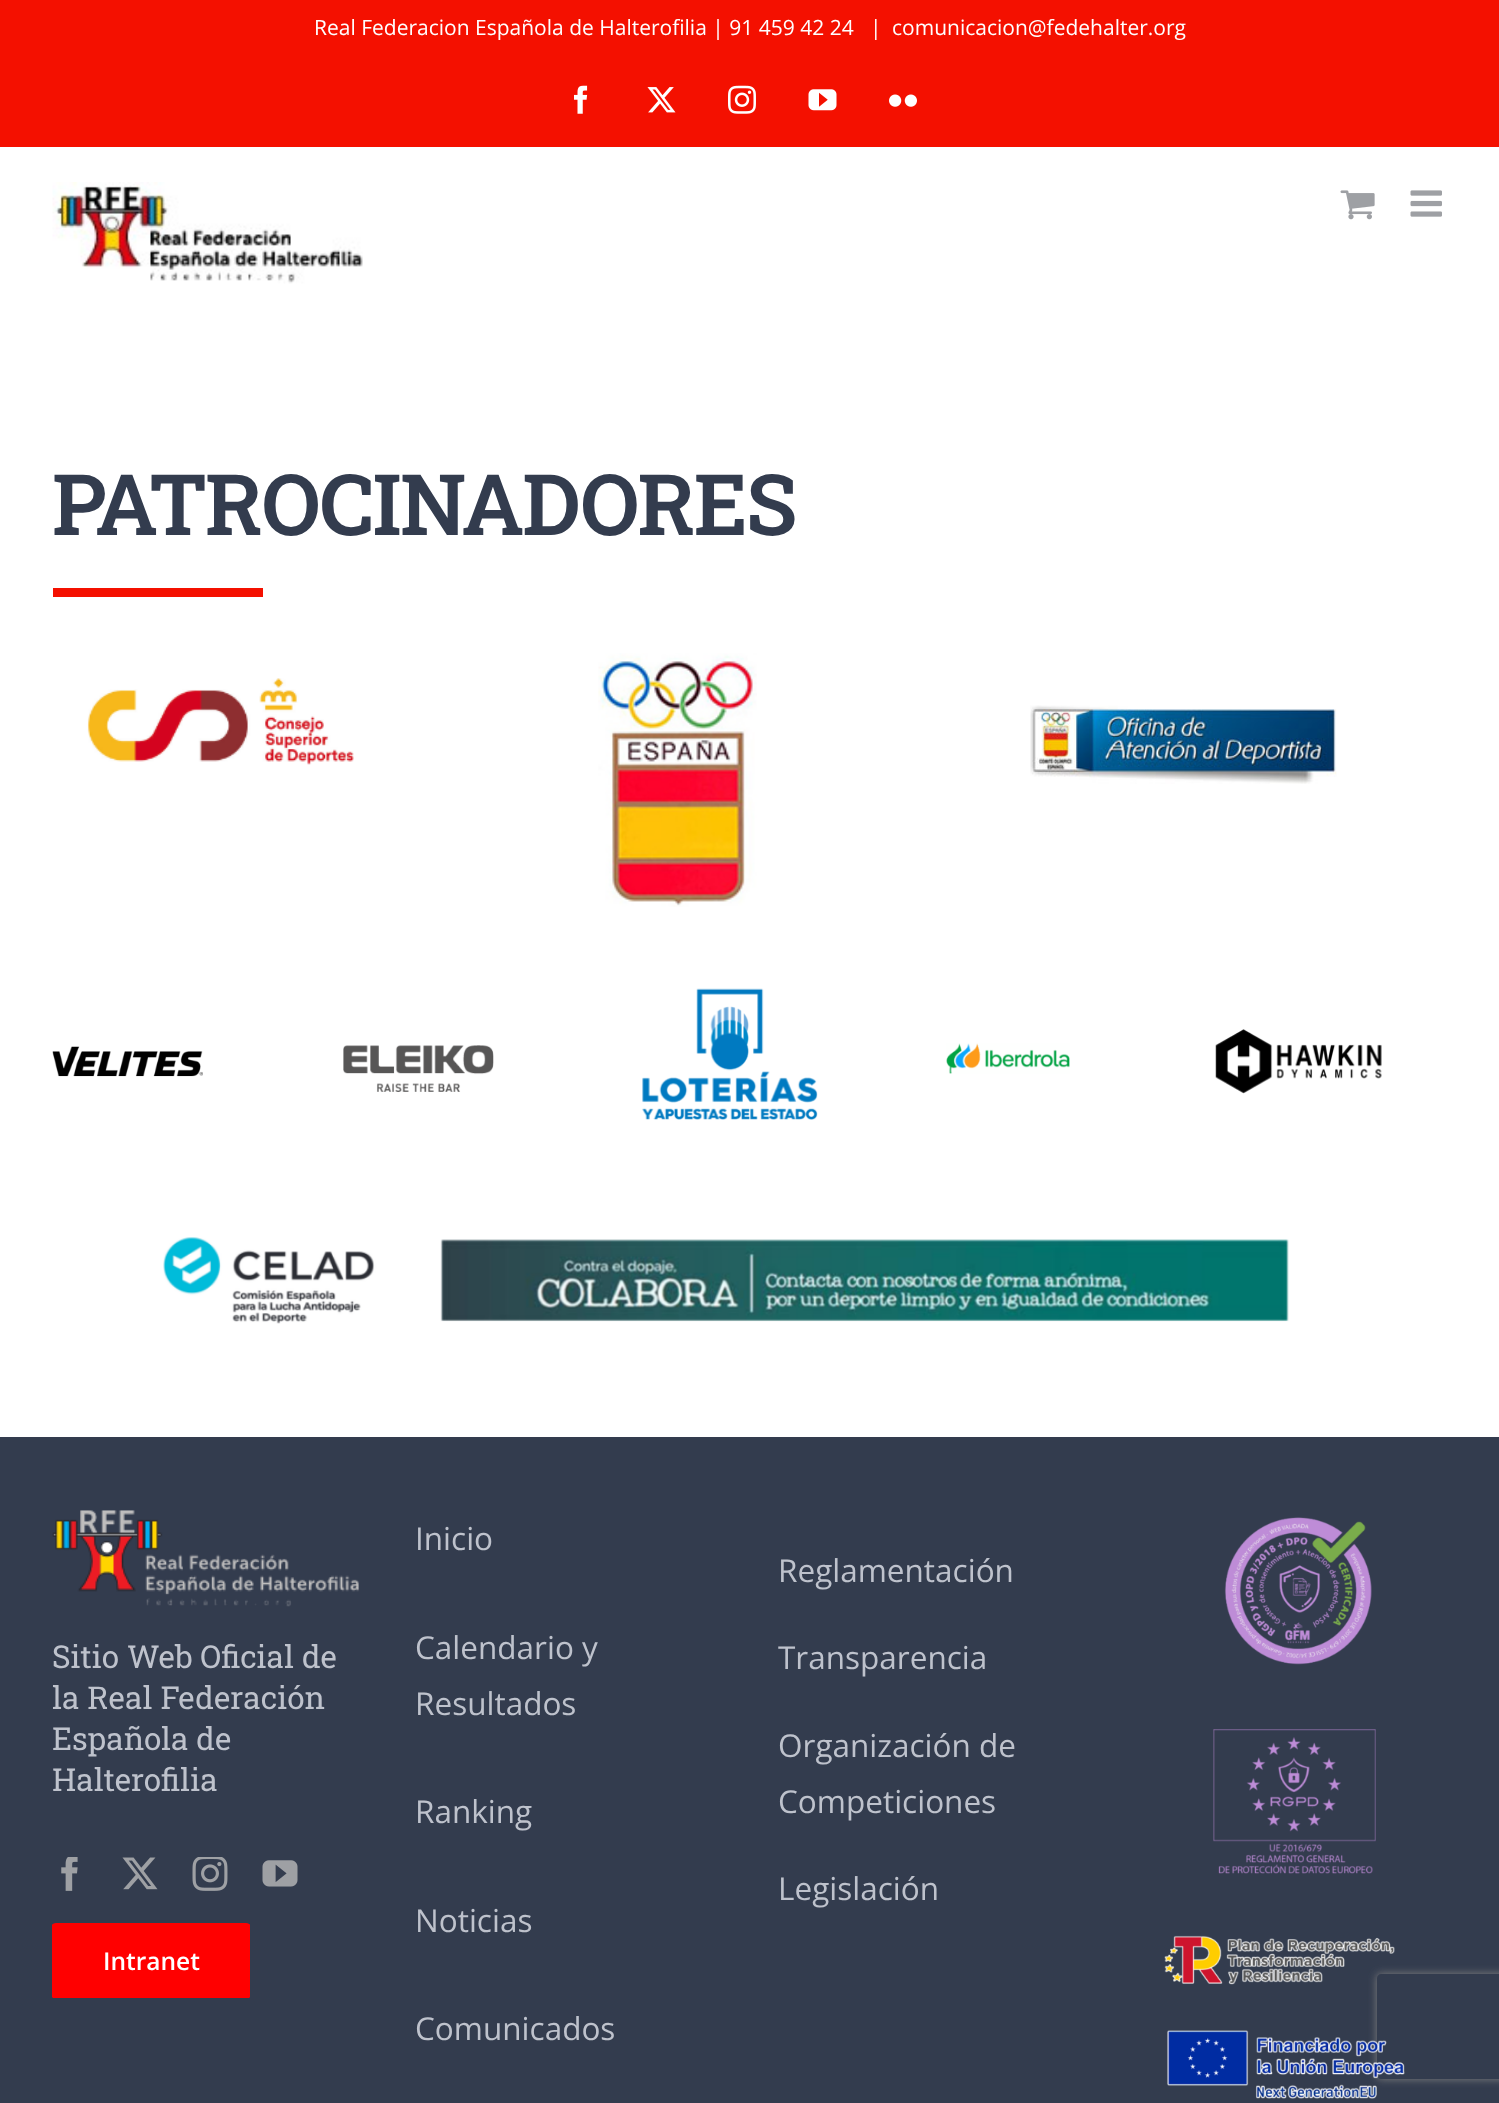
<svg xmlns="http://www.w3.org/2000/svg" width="1499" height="2103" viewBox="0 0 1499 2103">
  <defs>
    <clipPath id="clip1"><path d="M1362 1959H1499V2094H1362ZM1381 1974H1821C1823 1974 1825 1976 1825 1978V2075C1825 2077 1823 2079 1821 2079H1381C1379 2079 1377 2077 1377 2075V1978C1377 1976 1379 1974 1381 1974Z" clip-rule="evenodd"/></clipPath>
    <filter id="blur1" x="-50%" y="-200%" width="200%" height="500%"><feGaussianBlur stdDeviation="4.5"/></filter>
  </defs>
  <rect width="100%" height="100%" fill="#ffffff"/>
  <rect x="0" y="0" width="1499" height="147" fill="#f41000"/>
  <text x="314" y="35" font-family="Open Sans" font-size="21" fill="#ffffff">Real Federacion Española de Halterofilia | 91 459 42 24</text>
  <text x="870" y="35" font-family="Open Sans" font-size="21" fill="#ffffff">|</text>
  <text x="892" y="35" font-family="Open Sans" font-size="21" fill="#ffffff">comunicacion@fedehalter.org</text>
  <image x="574" y="85" width="14" height="29" href="img1.png"/>
  <image x="647" y="87" width="29" height="26" href="img2.png"/>
  <image x="728" y="85" width="28" height="29" href="img3.png"/>
  <image x="808" y="89" width="29" height="22" href="img4.png"/>
  <image x="889" y="94" width="28" height="13" href="img5.png"/>
  <image x="52" y="182" width="311" height="102" href="img6.png"/>
  <image x="1340" y="190" width="35" height="30" href="img7.png"/>
  <image x="1410" y="190" width="32" height="27" href="img8.png"/>
  <text x="52" y="535" font-family="Roboto Slab" font-size="84.75" font-weight="600" letter-spacing="-1.75" fill="#333c4e">PATROCINADORES</text>
  <rect x="53" y="588" width="210" height="9" fill="#f41000"/>
  <image x="87" y="678" width="267" height="87" href="img9.png"/>
  <image x="598" y="653" width="159" height="254" href="img10.png"/>
  <image x="1030" y="705" width="307" height="79" href="img11.png"/>
  <image x="52" y="1046" width="151" height="31" href="img12.png"/>
  <image x="343" y="1045" width="151" height="47" href="img13.png"/>
  <image x="642" y="988" width="176" height="132" href="img14.png"/>
  <image x="946" y="1043" width="124" height="31" href="img15.png"/>
  <image x="1215" y="1029" width="167" height="65" href="img16.png"/>
  <image x="163" y="1237" width="1126" height="87" href="img17.png"/>
  <rect x="0" y="1437" width="1499" height="666" fill="#333c4e"/>
  <image x="52" y="1510" width="307" height="97" href="img18.png"/>
  <text x="52" y="1668" font-family="Roboto Slab" font-size="31.5" fill="#bec2cc">Sitio Web Oficial de</text>
  <text x="52" y="1709" font-family="Roboto Slab" font-size="31.5" fill="#bec2cc">la Real Federación</text>
  <text x="52" y="1750" font-family="Roboto Slab" font-size="31.5" fill="#bec2cc">Española de</text>
  <text x="52" y="1791" font-family="Roboto Slab" font-size="31.5" fill="#bec2cc">Halterofilia</text>
  <image x="61" y="1857" width="17" height="34" href="img19.png"/>
  <image x="122" y="1857" width="36" height="33" href="img20.png"/>
  <image x="192" y="1857" width="36" height="34" href="img21.png"/>
  <image x="262" y="1860" width="36" height="27" href="img22.png"/>
  <path d="M56 1923H246C248 1923 250 1924 250 1925V1997C250 1998 248 1998 246 1998H56C54 1998 52 1998 52 1997V1925C52 1924 54 1923 56 1923Z" fill="#ff0000"/>
  <text x="103" y="1970" font-family="Open Sans" font-size="24.5" font-weight="600" fill="#ffffff">Intranet</text>
  <text x="415" y="1550" font-family="Open Sans" font-size="31.5" fill="#bec2cc">Inicio</text>
  <text x="415" y="1659" font-family="Open Sans" font-size="31.5" fill="#bec2cc">Calendario y</text>
  <text x="415" y="1715" font-family="Open Sans" font-size="31.5" fill="#bec2cc">Resultados</text>
  <text x="415" y="1823" font-family="Open Sans" font-size="31.5" fill="#bec2cc">Ranking</text>
  <text x="415" y="1932" font-family="Open Sans" font-size="31.5" fill="#bec2cc">Noticias</text>
  <text x="415" y="2040" font-family="Open Sans" font-size="31.5" fill="#bec2cc">Comunicados</text>
  <text x="778" y="1582" font-family="Open Sans" font-size="31.5" fill="#bec2cc">Reglamentación</text>
  <text x="778" y="1669" font-family="Open Sans" font-size="31.5" fill="#bec2cc">Transparencia</text>
  <text x="778" y="1757" font-family="Open Sans" font-size="31.5" fill="#bec2cc">Organización de</text>
  <text x="778" y="1813" font-family="Open Sans" font-size="31.5" fill="#bec2cc">Competiciones</text>
  <text x="778" y="1900" font-family="Open Sans" font-size="31.5" fill="#bec2cc">Legislación</text>
  <image x="1224" y="1517" width="148" height="148" href="img23.png"/>
  <image x="1213" y="1729" width="163" height="145" href="img24.png"/>
  <g clip-path="url(#clip1)">
    <rect x="1377" y="1974" width="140" height="105" rx="4" fill="#808080" filter="url(#blur1)"/>
  </g>
  <image x="1164" y="1935" width="231" height="50" href="img25.png"/>
  <image x="1167" y="2030" width="238" height="69" href="img26.png"/>
</svg>
